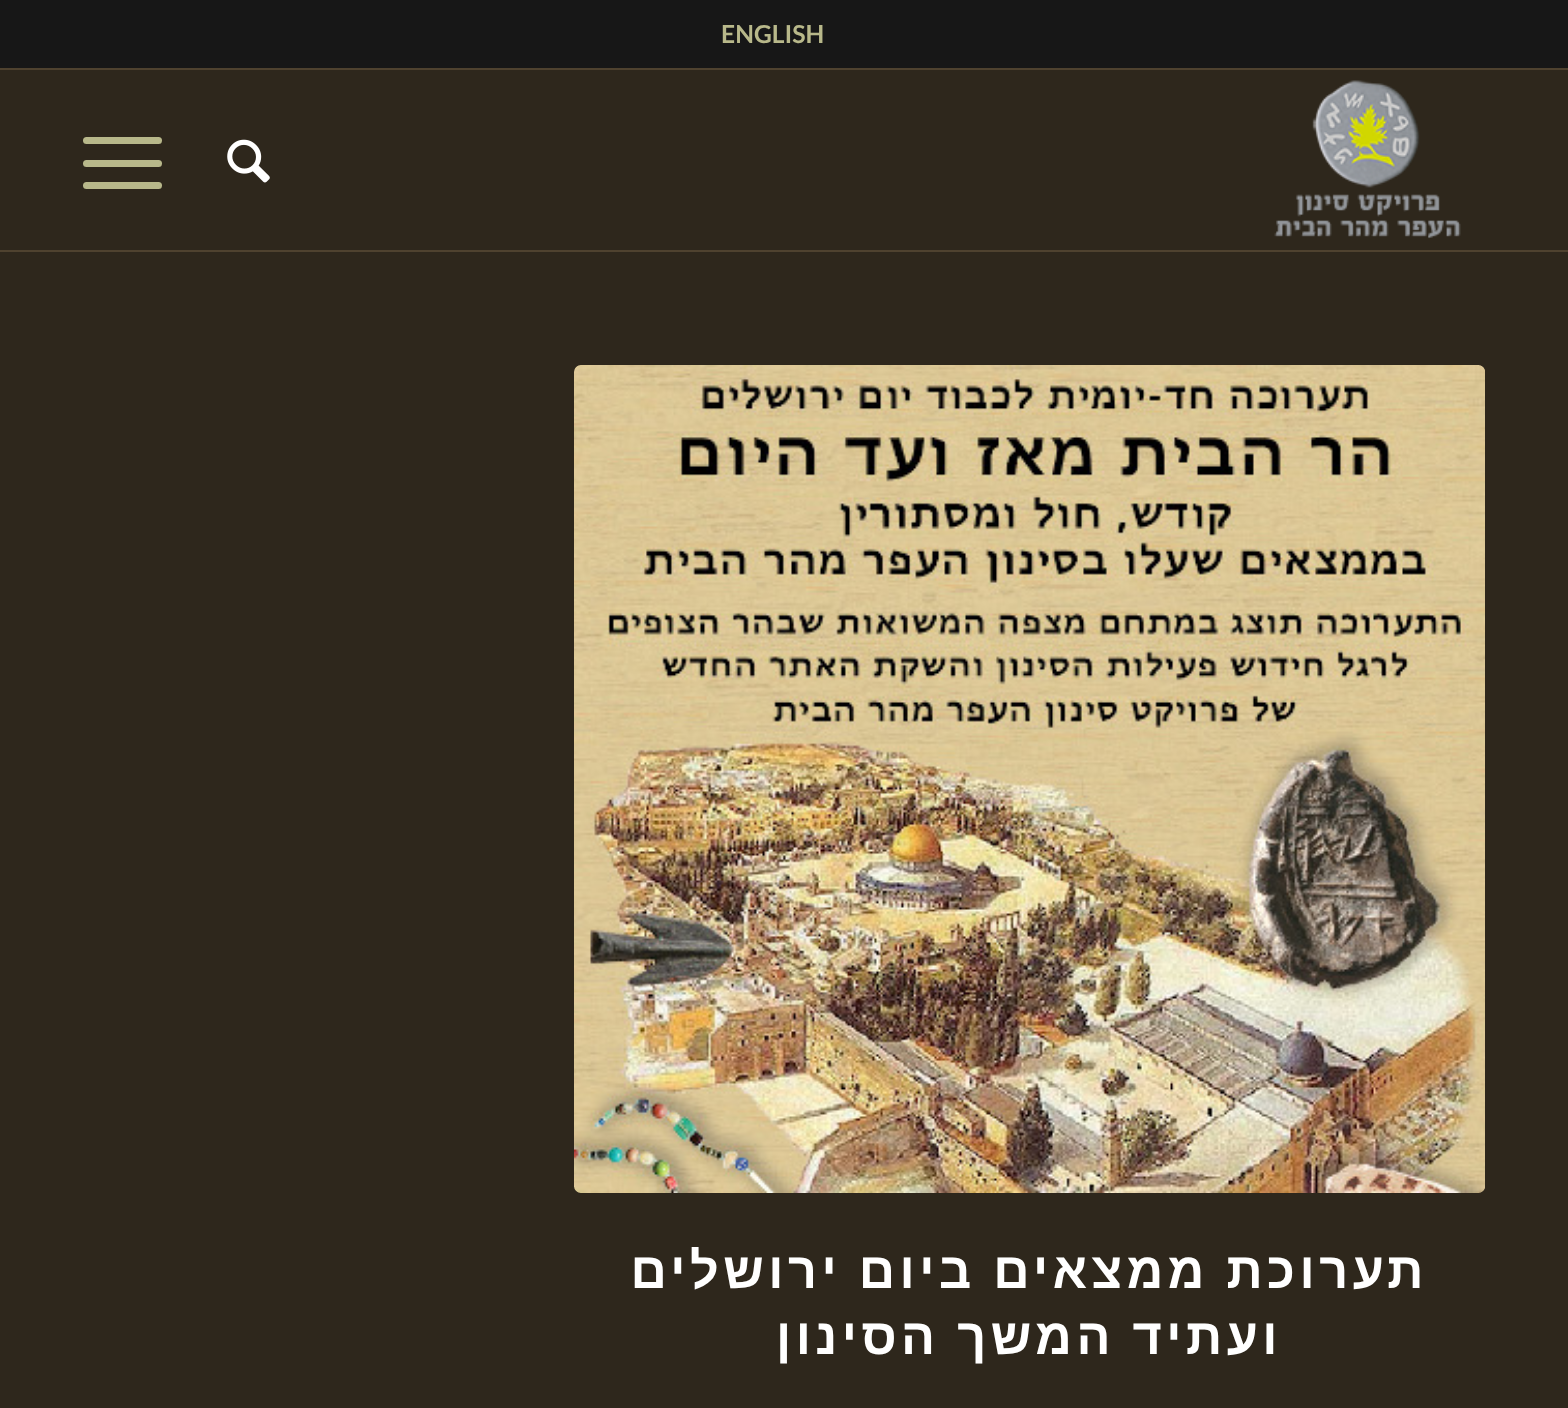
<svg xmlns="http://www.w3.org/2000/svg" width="1568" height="1408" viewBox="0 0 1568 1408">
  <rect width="100%" height="100%" fill="#2e271c"/>
  <rect x="0" y="0" width="1568" height="68" fill="#171717"/>
  <rect x="0" y="68" width="1568" height="2" fill="#4f422f"/>
  <text x="721" y="43" font-family="Lato" font-size="24.75" font-weight="bold" fill="#b8b88a">ENGLISH</text>
  <rect x="0" y="250" width="1568" height="2" fill="#4f422f"/>
  <image x="1274" y="80" width="187" height="159" href="img1.png"/>
  <image x="227" y="139" width="43" height="44" href="img2.png"/>
  <rect x="83" y="160" width="79" height="7" rx="3.5" fill="#b8b88a"/>
  <rect x="83" y="137" width="79" height="7" rx="3.5" fill="#b8b88a"/>
  <rect x="83" y="182" width="79" height="7" rx="3.5" fill="#b8b88a"/>
  <rect x="574" y="365" width="911" height="828" rx="7" fill="#8a7a5b"/>
  <image x="574" y="365" width="911" height="828" href="img3.png"/>
  <text x="1428" y="1288" word-spacing="-1" font-family="Liberation Sans" font-size="50.4" font-weight="bold" letter-spacing="4.5" direction="rtl" fill="#ffffff">תערוכת ממצאים ביום ירושלים</text>
  <text x="1282" y="1354" word-spacing="-1" font-family="Liberation Sans" font-size="50.4" font-weight="bold" letter-spacing="4.5" direction="rtl" fill="#ffffff">ועתיד המשך הסינון</text>
</svg>
